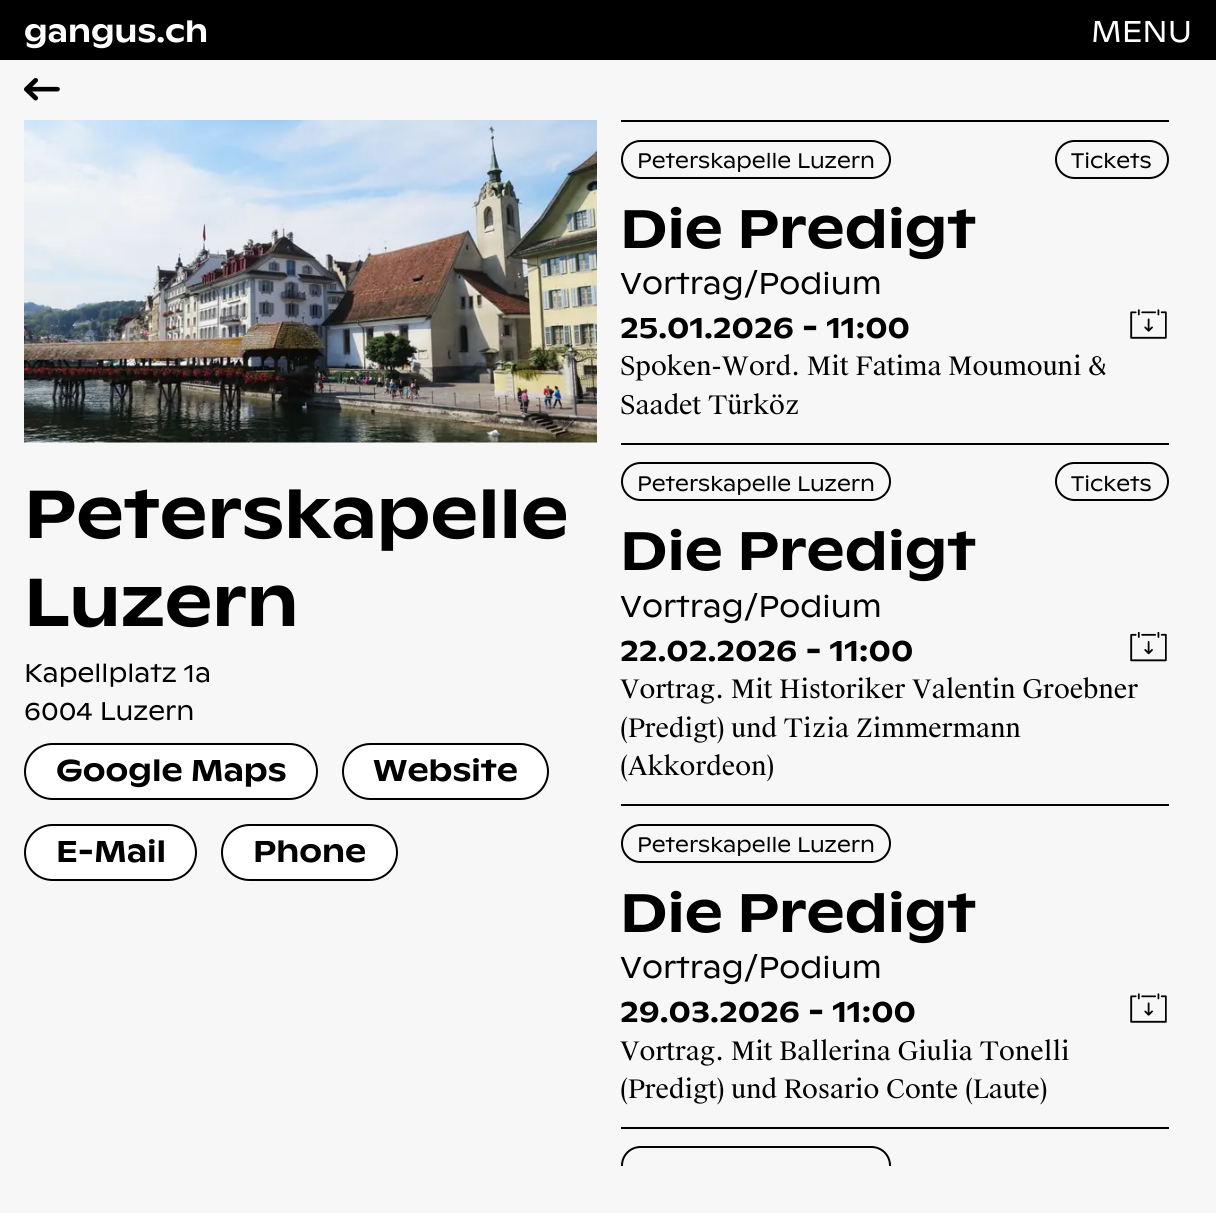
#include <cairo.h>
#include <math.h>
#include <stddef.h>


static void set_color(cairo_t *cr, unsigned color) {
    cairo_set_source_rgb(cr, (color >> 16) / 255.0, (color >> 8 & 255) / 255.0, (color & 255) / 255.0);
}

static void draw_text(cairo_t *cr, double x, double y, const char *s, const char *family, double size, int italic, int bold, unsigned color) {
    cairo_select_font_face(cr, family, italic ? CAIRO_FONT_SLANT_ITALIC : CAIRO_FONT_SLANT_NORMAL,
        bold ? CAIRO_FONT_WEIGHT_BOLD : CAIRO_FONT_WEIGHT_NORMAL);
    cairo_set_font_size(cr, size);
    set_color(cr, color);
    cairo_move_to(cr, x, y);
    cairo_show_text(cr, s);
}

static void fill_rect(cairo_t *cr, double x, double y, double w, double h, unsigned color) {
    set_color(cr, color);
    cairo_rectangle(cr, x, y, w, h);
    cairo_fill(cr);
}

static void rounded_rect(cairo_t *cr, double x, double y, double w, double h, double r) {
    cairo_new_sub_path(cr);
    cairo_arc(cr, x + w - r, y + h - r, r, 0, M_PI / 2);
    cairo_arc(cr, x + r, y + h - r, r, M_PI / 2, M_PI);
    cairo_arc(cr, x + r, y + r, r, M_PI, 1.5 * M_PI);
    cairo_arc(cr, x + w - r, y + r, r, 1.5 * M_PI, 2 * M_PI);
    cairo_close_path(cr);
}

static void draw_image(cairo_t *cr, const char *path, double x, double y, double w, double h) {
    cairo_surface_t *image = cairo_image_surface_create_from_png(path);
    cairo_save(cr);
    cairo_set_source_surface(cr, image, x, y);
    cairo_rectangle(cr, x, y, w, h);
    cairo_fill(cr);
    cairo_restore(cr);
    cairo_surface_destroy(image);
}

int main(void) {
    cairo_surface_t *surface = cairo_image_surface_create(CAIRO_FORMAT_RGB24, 1216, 1213);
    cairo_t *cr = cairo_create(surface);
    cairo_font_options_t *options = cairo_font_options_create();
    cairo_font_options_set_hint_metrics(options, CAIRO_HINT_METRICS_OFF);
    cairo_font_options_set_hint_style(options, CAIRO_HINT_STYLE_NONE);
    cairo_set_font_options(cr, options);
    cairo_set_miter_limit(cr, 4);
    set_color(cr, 0xF7F7F7);
    cairo_paint(cr);
    fill_rect(cr, 0, 0, 1216, 60, 0x000000);
    draw_text(cr, 24, 42, "gangus.ch", "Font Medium", 30, 0, 0, 0xFFFFFF);
    draw_text(cr, 1091, 42, "MENU", "Font", 30, 0, 0, 0xFFFFFF);
    draw_image(cr, "assets/img1.png", 24, 78, 36, 23);
    draw_image(cr, "assets/img2.png", 24, 120, 573, 323);
    draw_text(cr, 24, 538, "Peterskapelle", "Font Medium", 67.5, 0, 0, 0x000000);
    draw_text(cr, 24, 626, "Luzern", "Font Medium", 67.5, 0, 0, 0x000000);
    draw_text(cr, 24, 682, "Kapellplatz 1a", "Font", 25.5, 0, 0, 0x000000);
    draw_text(cr, 24, 720, "6004 Luzern", "Font", 25.5, 0, 0, 0x000000);
    set_color(cr, 0xFFFFFF);
    rounded_rect(cr, 25, 744, 292, 55, 27.5);
    cairo_fill_preserve(cr);
    set_color(cr, 0x000000);
    cairo_stroke(cr);
    draw_text(cr, 56, 781, "Google Maps", "Font Medium", 30, 0, 0, 0x000000);
    set_color(cr, 0xFFFFFF);
    rounded_rect(cr, 343, 744, 205, 55, 27.5);
    cairo_fill_preserve(cr);
    set_color(cr, 0x000000);
    cairo_stroke(cr);
    draw_text(cr, 373, 781, "Website", "Font Medium", 30, 0, 0, 0x000000);
    set_color(cr, 0xFFFFFF);
    rounded_rect(cr, 25, 825, 171, 55, 27.5);
    cairo_fill_preserve(cr);
    set_color(cr, 0x000000);
    cairo_stroke(cr);
    draw_text(cr, 56, 862, "E-Mail", "Font Medium", 30, 0, 0, 0x000000);
    set_color(cr, 0xFFFFFF);
    rounded_rect(cr, 222, 825, 175, 55, 27.5);
    cairo_fill_preserve(cr);
    set_color(cr, 0x000000);
    cairo_stroke(cr);
    draw_text(cr, 253, 862, "Phone", "Font Medium", 30, 0, 0, 0x000000);
    fill_rect(cr, 621, 120, 548, 2, 0x000000);
    fill_rect(cr, 621, 443, 548, 2, 0x000000);
    rounded_rect(cr, 622, 141, 268, 37, 18.5);
    cairo_stroke(cr);
    draw_text(cr, 637, 168, "Peterskapelle Luzern", "Font", 21, 0, 0, 0x000000);
    rounded_rect(cr, 1056, 141, 112, 37, 18.5);
    cairo_stroke(cr);
    draw_text(cr, 1071, 168, "Tickets", "Font", 21, 0, 0, 0x000000);
    draw_text(cr, 620, 248, "Die Predigt", "Font Medium", 54, 0, 0, 0x000000);
    draw_text(cr, 620, 294, "Vortrag/Podium", "Font", 30, 0, 0, 0x000000);
    draw_text(cr, 620, 338, "25.01.2026 - 11:00", "Font Medium", 30, 0, 0, 0x000000);
    draw_image(cr, "assets/img3.png", 1130, 309, 37, 30);
    draw_text(cr, 620, 375, "Spoken-Word. Mit Fatima Moumouni &", "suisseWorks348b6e", 25.5, 0, 0, 0x000000);
    draw_text(cr, 620, 414, "Saadet Türköz", "suisseWorks348b6e", 25.5, 0, 0, 0x000000);
    fill_rect(cr, 621, 804, 548, 2, 0x000000);
    rounded_rect(cr, 622, 463, 268, 37, 18.5);
    cairo_stroke(cr);
    draw_text(cr, 637, 491, "Peterskapelle Luzern", "Font", 21, 0, 0, 0x000000);
    rounded_rect(cr, 1056, 463, 112, 37, 18.5);
    cairo_stroke(cr);
    draw_text(cr, 1071, 491, "Tickets", "Font", 21, 0, 0, 0x000000);
    draw_text(cr, 620, 570, "Die Predigt", "Font Medium", 54, 0, 0, 0x000000);
    draw_text(cr, 620, 617, "Vortrag/Podium", "Font", 30, 0, 0, 0x000000);
    draw_text(cr, 620, 661, "22.02.2026 - 11:00", "Font Medium", 30, 0, 0, 0x000000);
    draw_image(cr, "assets/img4.png", 1130, 632, 37, 30);
    draw_text(cr, 620, 698, "Vortrag. Mit Historiker Valentin Groebner", "suisseWorks348b6e", 25.5, 0, 0, 0x000000);
    draw_text(cr, 620, 737, "(Predigt) und Tizia Zimmermann", "suisseWorks348b6e", 25.5, 0, 0, 0x000000);
    draw_text(cr, 620, 775, "(Akkordeon)", "suisseWorks348b6e", 25.5, 0, 0, 0x000000);
    fill_rect(cr, 621, 1127, 548, 2, 0x000000);
    rounded_rect(cr, 622, 825, 268, 37, 18.5);
    cairo_stroke(cr);
    draw_text(cr, 637, 852, "Peterskapelle Luzern", "Font", 21, 0, 0, 0x000000);
    draw_text(cr, 620, 932, "Die Predigt", "Font Medium", 54, 0, 0, 0x000000);
    draw_text(cr, 620, 978, "Vortrag/Podium", "Font", 30, 0, 0, 0x000000);
    draw_text(cr, 620, 1022, "29.03.2026 - 11:00", "Font Medium", 30, 0, 0, 0x000000);
    draw_image(cr, "assets/img3.png", 1130, 993, 37, 30);
    draw_text(cr, 620, 1060, "Vortrag. Mit Ballerina Giulia Tonelli", "suisseWorks348b6e", 25.5, 0, 0, 0x000000);
    draw_text(cr, 620, 1098, "(Predigt) und Rosario Conte (Laute)", "suisseWorks348b6e", 25.5, 0, 0, 0x000000);
    cairo_save(cr);
    cairo_rectangle(cr, 621, 120, 572, 1046);
    cairo_clip(cr);
    rounded_rect(cr, 622, 1147, 268, 37, 18.5);
    cairo_stroke(cr);
    cairo_restore(cr);
    cairo_surface_write_to_png(surface, "output.png");
    cairo_font_options_destroy(options);
    cairo_destroy(cr);
    cairo_surface_destroy(surface);
    return 0;
}
